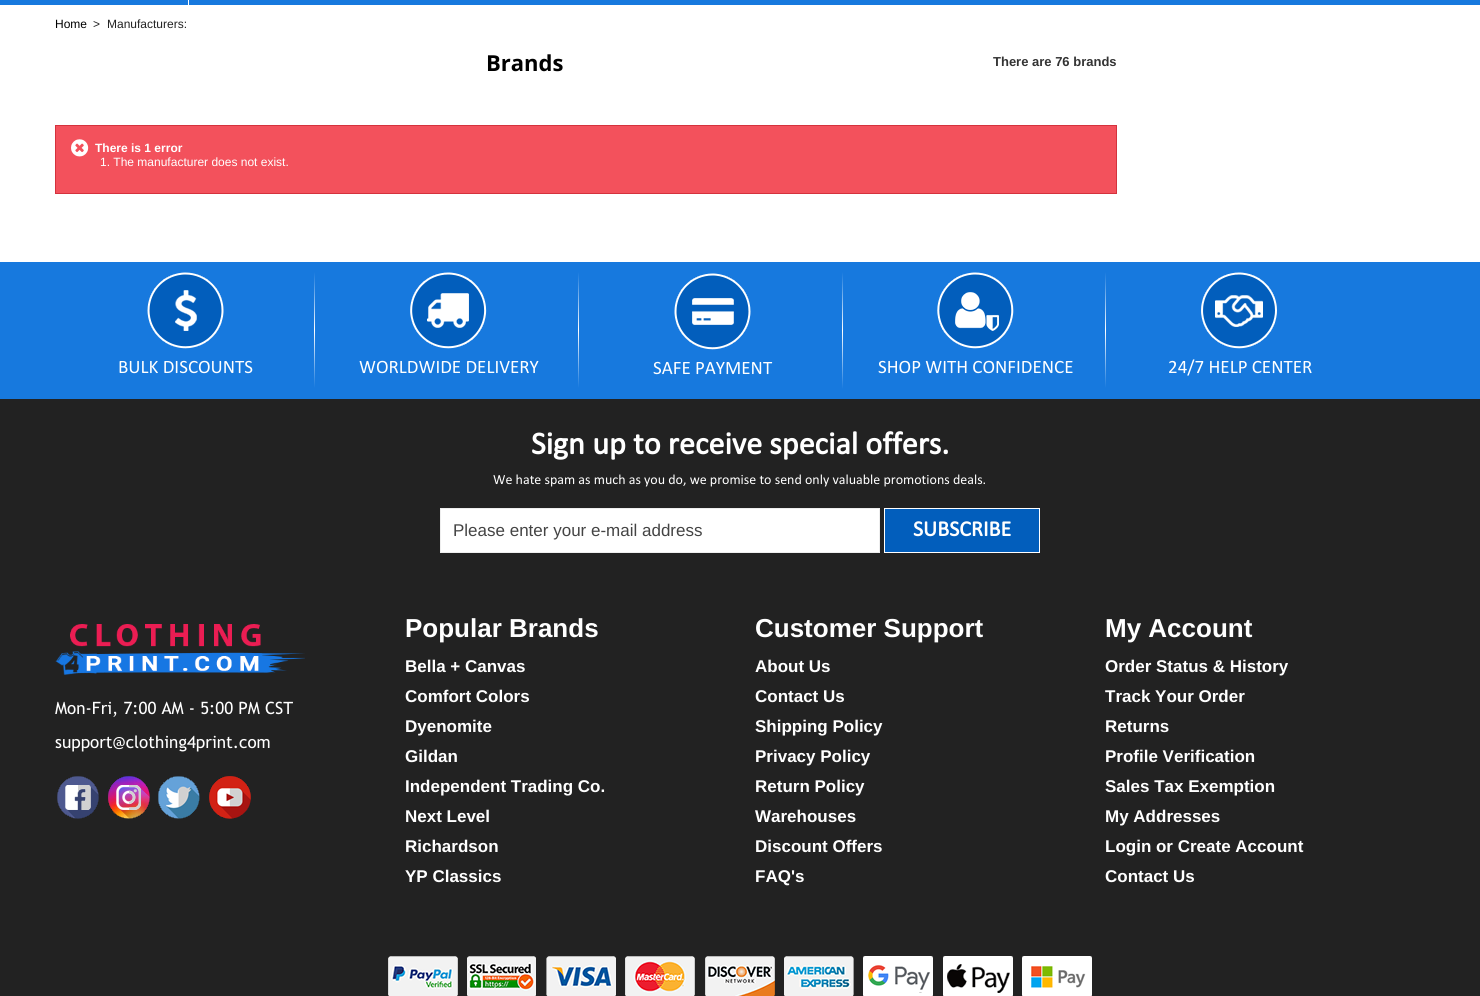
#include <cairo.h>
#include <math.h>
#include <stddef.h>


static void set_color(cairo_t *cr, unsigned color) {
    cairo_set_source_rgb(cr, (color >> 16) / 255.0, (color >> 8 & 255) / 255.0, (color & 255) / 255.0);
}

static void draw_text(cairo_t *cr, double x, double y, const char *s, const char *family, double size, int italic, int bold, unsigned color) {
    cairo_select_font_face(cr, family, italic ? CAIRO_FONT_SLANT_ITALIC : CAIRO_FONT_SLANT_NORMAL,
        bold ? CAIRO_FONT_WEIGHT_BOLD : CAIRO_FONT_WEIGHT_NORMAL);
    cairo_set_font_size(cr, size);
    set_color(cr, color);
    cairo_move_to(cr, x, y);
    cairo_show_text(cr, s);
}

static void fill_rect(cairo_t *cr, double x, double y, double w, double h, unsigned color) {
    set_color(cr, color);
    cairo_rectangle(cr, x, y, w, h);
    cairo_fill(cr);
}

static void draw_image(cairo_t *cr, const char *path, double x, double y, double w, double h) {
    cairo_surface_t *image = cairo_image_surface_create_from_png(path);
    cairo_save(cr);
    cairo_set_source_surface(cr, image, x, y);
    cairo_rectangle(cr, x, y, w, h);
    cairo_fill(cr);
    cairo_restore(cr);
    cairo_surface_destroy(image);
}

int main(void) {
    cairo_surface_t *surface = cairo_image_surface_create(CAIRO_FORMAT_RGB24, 1480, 996);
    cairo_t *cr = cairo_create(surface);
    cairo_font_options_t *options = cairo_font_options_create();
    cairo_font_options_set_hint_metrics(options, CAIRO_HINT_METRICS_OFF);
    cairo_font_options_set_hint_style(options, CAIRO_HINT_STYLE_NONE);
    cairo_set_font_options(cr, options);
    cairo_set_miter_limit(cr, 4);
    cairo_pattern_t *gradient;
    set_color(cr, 0xFFFFFF);
    cairo_paint(cr);
    fill_rect(cr, 0, 0, 1480, 5, 0x1779DE);
    fill_rect(cr, 188, 0, 1, 5, 0xFFFFFF);
    draw_text(cr, 55, 28, "Home", "Liberation Sans", 12, 0, 0, 0x000000);
    draw_text(cr, 93, 28, ">", "Liberation Sans", 12, 0, 0, 0x222222);
    draw_text(cr, 107, 28, "Manufacturers:", "Liberation Sans", 12, 0, 0, 0x222222);
    draw_text(cr, 486, 71, "Brands", "Open Sans", 22, 0, 1, 0x000000);
    draw_text(cr, 993, 66, "There are 76 brands", "Liberation Sans", 13, 0, 1, 0x333333);
    set_color(cr, 0xF3515C);
    cairo_rectangle(cr, 55.5, 125.5, 1061, 68);
    cairo_fill_preserve(cr);
    set_color(cr, 0xD4323D);
    cairo_set_line_width(cr, 1);
    cairo_stroke(cr);
    draw_image(cr, "assets/img1.png", 71, 139, 18, 18);
    draw_text(cr, 95, 152, "There is 1 error", "Liberation Sans", 12, 0, 1, 0xFFFFFF);
    draw_text(cr, 100, 166, "1. The manufacturer does not exist.", "Liberation Sans", 12, 0, 0, 0xFFFFFF);
    fill_rect(cr, 0, 262, 1480, 137, 0x1779DE);
    draw_image(cr, "assets/img2.png", 147, 272, 77, 77);
    draw_text(cr, 118, 373, "BULK DISCOUNTS", "Calibri", 19, 0, 0, 0xFFFFFF);
    gradient = cairo_pattern_create_linear(315, 272, 315, 388);
    cairo_pattern_add_color_stop_rgba(gradient, 0, 0.09, 0.475, 0.871, 1);
    cairo_pattern_add_color_stop_rgba(gradient, 0.5, 1, 1, 1, 1);
    cairo_pattern_add_color_stop_rgba(gradient, 1, 0.09, 0.475, 0.871, 1);
    cairo_set_source(cr, gradient);
    cairo_pattern_destroy(gradient);
    cairo_rectangle(cr, 314, 272, 1, 116);
    cairo_fill(cr);
    draw_image(cr, "assets/img3.png", 410, 272, 77, 77);
    draw_text(cr, 359, 373, "WORLDWIDE DELIVERY", "Calibri", 19, 0, 0, 0xFFFFFF);
    gradient = cairo_pattern_create_linear(579, 272, 579, 388);
    cairo_pattern_add_color_stop_rgba(gradient, 0, 0.09, 0.475, 0.871, 1);
    cairo_pattern_add_color_stop_rgba(gradient, 0.5, 1, 1, 1, 1);
    cairo_pattern_add_color_stop_rgba(gradient, 1, 0.09, 0.475, 0.871, 1);
    cairo_set_source(cr, gradient);
    cairo_pattern_destroy(gradient);
    cairo_rectangle(cr, 578, 272, 1, 116);
    cairo_fill(cr);
    draw_image(cr, "assets/img4.png", 674, 273, 77, 77);
    draw_text(cr, 653, 374, "SAFE PAYMENT", "Calibri", 19, 0, 0, 0xFFFFFF);
    gradient = cairo_pattern_create_linear(843, 272, 843, 389);
    cairo_pattern_add_color_stop_rgba(gradient, 0, 0.09, 0.475, 0.871, 1);
    cairo_pattern_add_color_stop_rgba(gradient, 0.5, 1, 1, 1, 1);
    cairo_pattern_add_color_stop_rgba(gradient, 1, 0.09, 0.475, 0.871, 1);
    cairo_set_source(cr, gradient);
    cairo_pattern_destroy(gradient);
    cairo_rectangle(cr, 842, 272, 1, 117);
    cairo_fill(cr);
    draw_image(cr, "assets/img5.png", 937, 272, 77, 77);
    draw_text(cr, 878, 373, "SHOP WITH CONFIDENCE", "Calibri", 19, 0, 0, 0xFFFFFF);
    gradient = cairo_pattern_create_linear(1106, 272, 1106, 388);
    cairo_pattern_add_color_stop_rgba(gradient, 0, 0.09, 0.475, 0.871, 1);
    cairo_pattern_add_color_stop_rgba(gradient, 0.5, 1, 1, 1, 1);
    cairo_pattern_add_color_stop_rgba(gradient, 1, 0.09, 0.475, 0.871, 1);
    cairo_set_source(cr, gradient);
    cairo_pattern_destroy(gradient);
    cairo_rectangle(cr, 1105, 272, 1, 116);
    cairo_fill(cr);
    draw_image(cr, "assets/img6.png", 1201, 272, 76, 77);
    draw_text(cr, 1168, 373, "24/7 HELP CENTER", "Calibri", 19, 0, 0, 0xFFFFFF);
    fill_rect(cr, 0, 399, 1480, 597, 0x222222);
    draw_text(cr, 531, 454, "Sign up to receive special offers.", "Calibri", 32, 0, 1, 0xFFFFFF);
    draw_text(cr, 493, 484, "We hate spam as much as you do, we promise to send only valuable promotions deals.", "Calibri", 14, 0, 0, 0xFFFFFF);
    cairo_rectangle(cr, 440.5, 508.5, 439, 44);
    cairo_fill_preserve(cr);
    set_color(cr, 0xEEEEEE);
    cairo_stroke(cr);
    draw_text(cr, 453, 536, "Please enter your e-mail address", "Liberation Sans", 17, 0, 0, 0x444444);
    set_color(cr, 0x025EBC);
    cairo_rectangle(cr, 884.5, 508.5, 155, 44);
    cairo_fill_preserve(cr);
    set_color(cr, 0xFFFFFF);
    cairo_stroke(cr);
    draw_text(cr, 913, 536, "SUBSCRIBE", "Calibri", 22, 0, 1, 0xFFFFFF);
    draw_image(cr, "assets/img7.png", 55, 624, 250, 51);
    draw_text(cr, 55, 714, "Mon-Fri, 7:00 AM - 5:00 PM CST", "Trebuchet MS", 17, 0, 0, 0xFFFFFF);
    draw_text(cr, 55, 748, "support@clothing4print.com", "Trebuchet MS", 17, 0, 0, 0xFFFFFF);
    draw_image(cr, "assets/img8.png", 57, 776, 42, 43);
    draw_image(cr, "assets/img9.png", 108, 776, 42, 43);
    draw_image(cr, "assets/img10.png", 158, 776, 42, 43);
    draw_image(cr, "assets/img11.png", 209, 776, 42, 43);
    draw_text(cr, 405, 637, "Popular Brands", "Liberation Sans", 26, 0, 1, 0xFFFFFF);
    draw_text(cr, 405, 672, "Bella + Canvas", "Liberation Sans", 17, 0, 1, 0xFFFFFF);
    draw_text(cr, 405, 702, "Comfort Colors", "Liberation Sans", 17, 0, 1, 0xFFFFFF);
    draw_text(cr, 405, 732, "Dyenomite", "Liberation Sans", 17, 0, 1, 0xFFFFFF);
    draw_text(cr, 405, 762, "Gildan", "Liberation Sans", 17, 0, 1, 0xFFFFFF);
    draw_text(cr, 405, 792, "Independent Trading Co.", "Liberation Sans", 17, 0, 1, 0xFFFFFF);
    draw_text(cr, 405, 822, "Next Level", "Liberation Sans", 17, 0, 1, 0xFFFFFF);
    draw_text(cr, 405, 852, "Richardson", "Liberation Sans", 17, 0, 1, 0xFFFFFF);
    draw_text(cr, 405, 882, "YP Classics", "Liberation Sans", 17, 0, 1, 0xFFFFFF);
    draw_text(cr, 755, 637, "Customer Support", "Liberation Sans", 26, 0, 1, 0xFFFFFF);
    draw_text(cr, 755, 672, "About Us", "Liberation Sans", 17, 0, 1, 0xFFFFFF);
    draw_text(cr, 755, 702, "Contact Us", "Liberation Sans", 17, 0, 1, 0xFFFFFF);
    draw_text(cr, 755, 732, "Shipping Policy", "Liberation Sans", 17, 0, 1, 0xFFFFFF);
    draw_text(cr, 755, 762, "Privacy Policy", "Liberation Sans", 17, 0, 1, 0xFFFFFF);
    draw_text(cr, 755, 792, "Return Policy", "Liberation Sans", 17, 0, 1, 0xFFFFFF);
    draw_text(cr, 755, 822, "Warehouses", "Liberation Sans", 17, 0, 1, 0xFFFFFF);
    draw_text(cr, 755, 852, "Discount Offers", "Liberation Sans", 17, 0, 1, 0xFFFFFF);
    draw_text(cr, 755, 882, "FAQ's", "Liberation Sans", 17, 0, 1, 0xFFFFFF);
    draw_text(cr, 1105, 637, "My Account", "Liberation Sans", 26, 0, 1, 0xFFFFFF);
    draw_text(cr, 1105, 672, "Order Status & History", "Liberation Sans", 17, 0, 1, 0xFFFFFF);
    draw_text(cr, 1105, 702, "Track Your Order", "Liberation Sans", 17, 0, 1, 0xFFFFFF);
    draw_text(cr, 1105, 732, "Returns", "Liberation Sans", 17, 0, 1, 0xFFFFFF);
    draw_text(cr, 1105, 762, "Profile Verification", "Liberation Sans", 17, 0, 1, 0xFFFFFF);
    draw_text(cr, 1105, 792, "Sales Tax Exemption", "Liberation Sans", 17, 0, 1, 0xFFFFFF);
    draw_text(cr, 1105, 822, "My Addresses", "Liberation Sans", 17, 0, 1, 0xFFFFFF);
    draw_text(cr, 1105, 852, "Login or Create Account", "Liberation Sans", 17, 0, 1, 0xFFFFFF);
    draw_text(cr, 1105, 882, "Contact Us", "Liberation Sans", 17, 0, 1, 0xFFFFFF);
    draw_image(cr, "assets/img12.png", 388, 956, 70, 40);
    draw_image(cr, "assets/img13.png", 467, 956, 69, 40);
    draw_image(cr, "assets/img14.png", 546, 956, 70, 40);
    draw_image(cr, "assets/img15.png", 625, 956, 70, 40);
    draw_image(cr, "assets/img16.png", 705, 956, 70, 40);
    draw_image(cr, "assets/img17.png", 784, 956, 70, 40);
    draw_image(cr, "assets/img18.png", 863, 956, 70, 40);
    draw_image(cr, "assets/img19.png", 943, 956, 70, 40);
    draw_image(cr, "assets/img20.png", 1022, 956, 70, 40);
    cairo_surface_write_to_png(surface, "output.png");
    cairo_font_options_destroy(options);
    cairo_destroy(cr);
    cairo_surface_destroy(surface);
    return 0;
}
